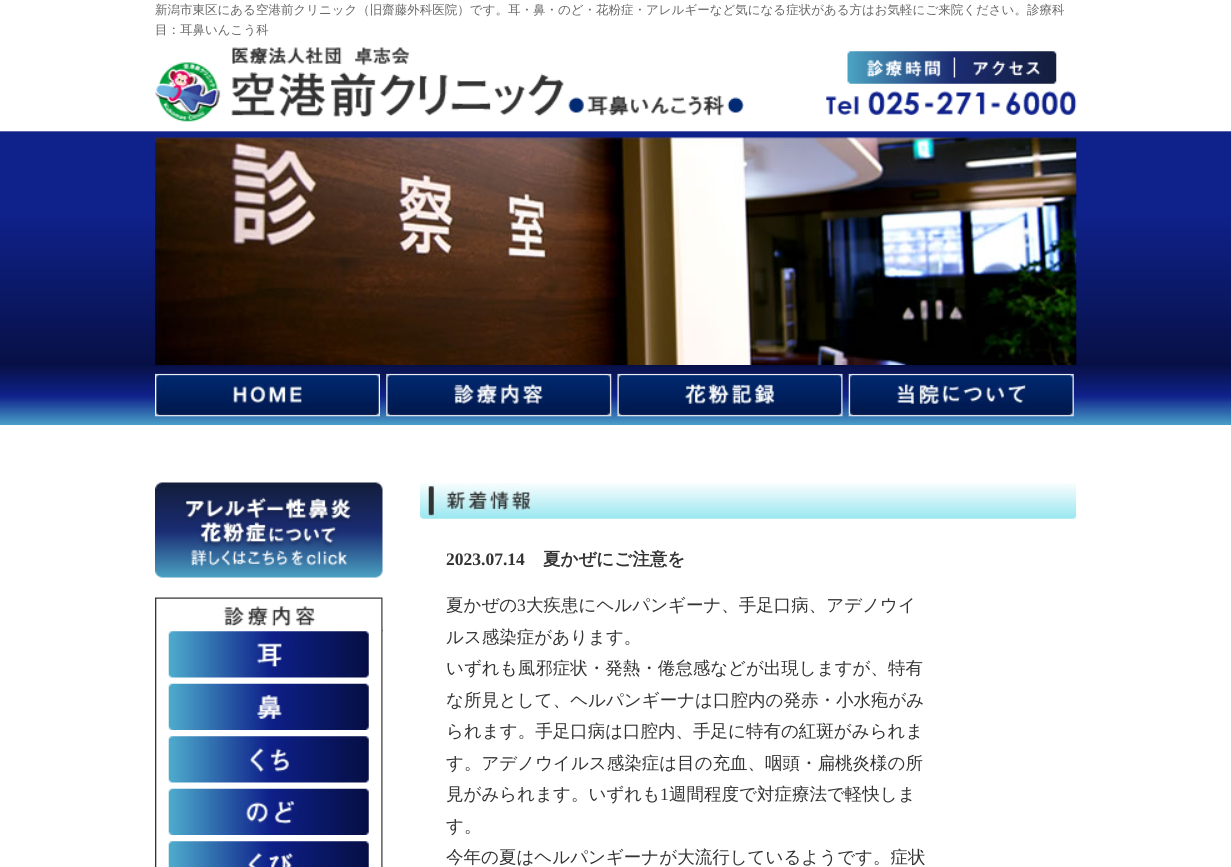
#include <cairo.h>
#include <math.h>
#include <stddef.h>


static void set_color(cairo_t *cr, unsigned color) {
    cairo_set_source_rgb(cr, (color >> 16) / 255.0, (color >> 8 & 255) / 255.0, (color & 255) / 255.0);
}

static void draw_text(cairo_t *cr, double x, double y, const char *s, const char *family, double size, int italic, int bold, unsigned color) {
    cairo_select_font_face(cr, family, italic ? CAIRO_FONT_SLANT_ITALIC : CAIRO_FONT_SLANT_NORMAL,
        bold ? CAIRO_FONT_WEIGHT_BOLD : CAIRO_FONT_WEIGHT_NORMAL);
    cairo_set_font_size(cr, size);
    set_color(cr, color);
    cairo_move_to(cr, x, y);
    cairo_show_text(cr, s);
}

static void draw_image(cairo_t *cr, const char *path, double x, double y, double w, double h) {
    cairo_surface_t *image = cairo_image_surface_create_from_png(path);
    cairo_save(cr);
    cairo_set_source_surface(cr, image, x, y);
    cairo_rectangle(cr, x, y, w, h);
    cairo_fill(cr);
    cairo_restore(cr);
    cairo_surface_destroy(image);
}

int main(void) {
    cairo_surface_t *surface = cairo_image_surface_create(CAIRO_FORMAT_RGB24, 1231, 867);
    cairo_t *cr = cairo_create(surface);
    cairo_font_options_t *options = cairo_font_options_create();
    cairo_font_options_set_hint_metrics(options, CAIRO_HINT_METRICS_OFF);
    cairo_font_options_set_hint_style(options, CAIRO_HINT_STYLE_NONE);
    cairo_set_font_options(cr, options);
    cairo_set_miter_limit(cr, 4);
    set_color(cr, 0xFFFFFF);
    cairo_paint(cr);
    draw_image(cr, "assets/img1.png", 0, 131, 1231, 294);
    draw_text(cr, 155, 14, "新潟市東区にある空港前クリニック（旧齋藤外科医院）です。耳・鼻・のど・花粉症・アレルギーなど気になる症状がある方はお気軽にご来院ください。診療科", "WenQuanYi Zen Hei Medium", 12.5, 0, 0, 0x666666);
    draw_text(cr, 155, 34, "目：耳鼻いんこう科", "WenQuanYi Zen Hei Medium", 12.5, 0, 0, 0x666666);
    draw_image(cr, "assets/img2.png", 155, 47, 589, 75);
    draw_image(cr, "assets/img3.png", 847, 51, 210, 33);
    draw_image(cr, "assets/img4.png", 826, 91, 251, 24);
    draw_image(cr, "assets/img5.png", 155, 137, 922, 228);
    draw_image(cr, "assets/img6.png", 155, 373, 225, 44);
    draw_image(cr, "assets/img7.png", 386, 373, 226, 44);
    draw_image(cr, "assets/img8.png", 617, 373, 226, 44);
    draw_image(cr, "assets/img9.png", 848, 373, 226, 44);
    draw_image(cr, "assets/img10.png", 155, 482, 228, 96);
    draw_image(cr, "assets/img11.png", 155, 630, 228, 237);
    draw_image(cr, "assets/img12.png", 155, 597, 228, 35);
    draw_image(cr, "assets/img13.png", 168, 631, 201, 47);
    draw_image(cr, "assets/img14.png", 168, 683, 201, 47);
    draw_image(cr, "assets/img15.png", 168, 736, 201, 47);
    draw_image(cr, "assets/img16.png", 168, 788, 201, 47);
    draw_image(cr, "assets/img17.png", 168, 841, 201, 26);
    draw_image(cr, "assets/img18.png", 420, 483, 657, 36);
    draw_text(cr, 446, 565, "2023.07.14", "Liberation Serif", 17.5, 0, 1, 0x333333);
    draw_text(cr, 543, 565, "夏かぜにご注意を", "WenQuanYi Zen Hei", 17.5, 0, 1, 0x333333);
    draw_text(cr, 446, 611, "夏かぜの", "WenQuanYi Zen Hei Medium", 17.5, 0, 0, 0x333333);
    draw_text(cr, 517, 611, "3", "Liberation Serif", 17.5, 0, 0, 0x333333);
    draw_text(cr, 526, 611, "大疾患にヘルパンギーナ、手足口病、アデノウイ", "WenQuanYi Zen Hei Medium", 17.5, 0, 0, 0x333333);
    draw_text(cr, 446, 643, "ルス感染症があります。", "WenQuanYi Zen Hei Medium", 17.5, 0, 0, 0x333333);
    draw_text(cr, 446, 674, "いずれも風邪症状・発熱・倦怠感などが出現しますが、特有", "WenQuanYi Zen Hei Medium", 17.5, 0, 0, 0x333333);
    draw_text(cr, 446, 706, "な所見として、ヘルパンギーナは口腔内の発赤・小水疱がみ", "WenQuanYi Zen Hei Medium", 17.5, 0, 0, 0x333333);
    draw_text(cr, 446, 737, "られます。手足口病は口腔内、手足に特有の紅斑がみられま", "WenQuanYi Zen Hei Medium", 17.5, 0, 0, 0x333333);
    draw_text(cr, 446, 769, "す。アデノウイルス感染症は目の充血、咽頭・扁桃炎様の所", "WenQuanYi Zen Hei Medium", 17.5, 0, 0, 0x333333);
    draw_text(cr, 446, 800, "見がみられます。いずれも", "WenQuanYi Zen Hei Medium", 17.5, 0, 0, 0x333333);
    draw_text(cr, 660, 800, "1", "Liberation Serif", 17.5, 0, 0, 0x333333);
    draw_text(cr, 669, 800, "週間程度で対症療法で軽快しま", "WenQuanYi Zen Hei Medium", 17.5, 0, 0, 0x333333);
    draw_text(cr, 446, 832, "す。", "WenQuanYi Zen Hei Medium", 17.5, 0, 0, 0x333333);
    draw_text(cr, 446, 863, "今年の夏はヘルパンギーナが大流行しているようです。症状", "WenQuanYi Zen Hei Medium", 17.5, 0, 0, 0x333333);
    cairo_surface_write_to_png(surface, "output.png");
    cairo_font_options_destroy(options);
    cairo_destroy(cr);
    cairo_surface_destroy(surface);
    return 0;
}
